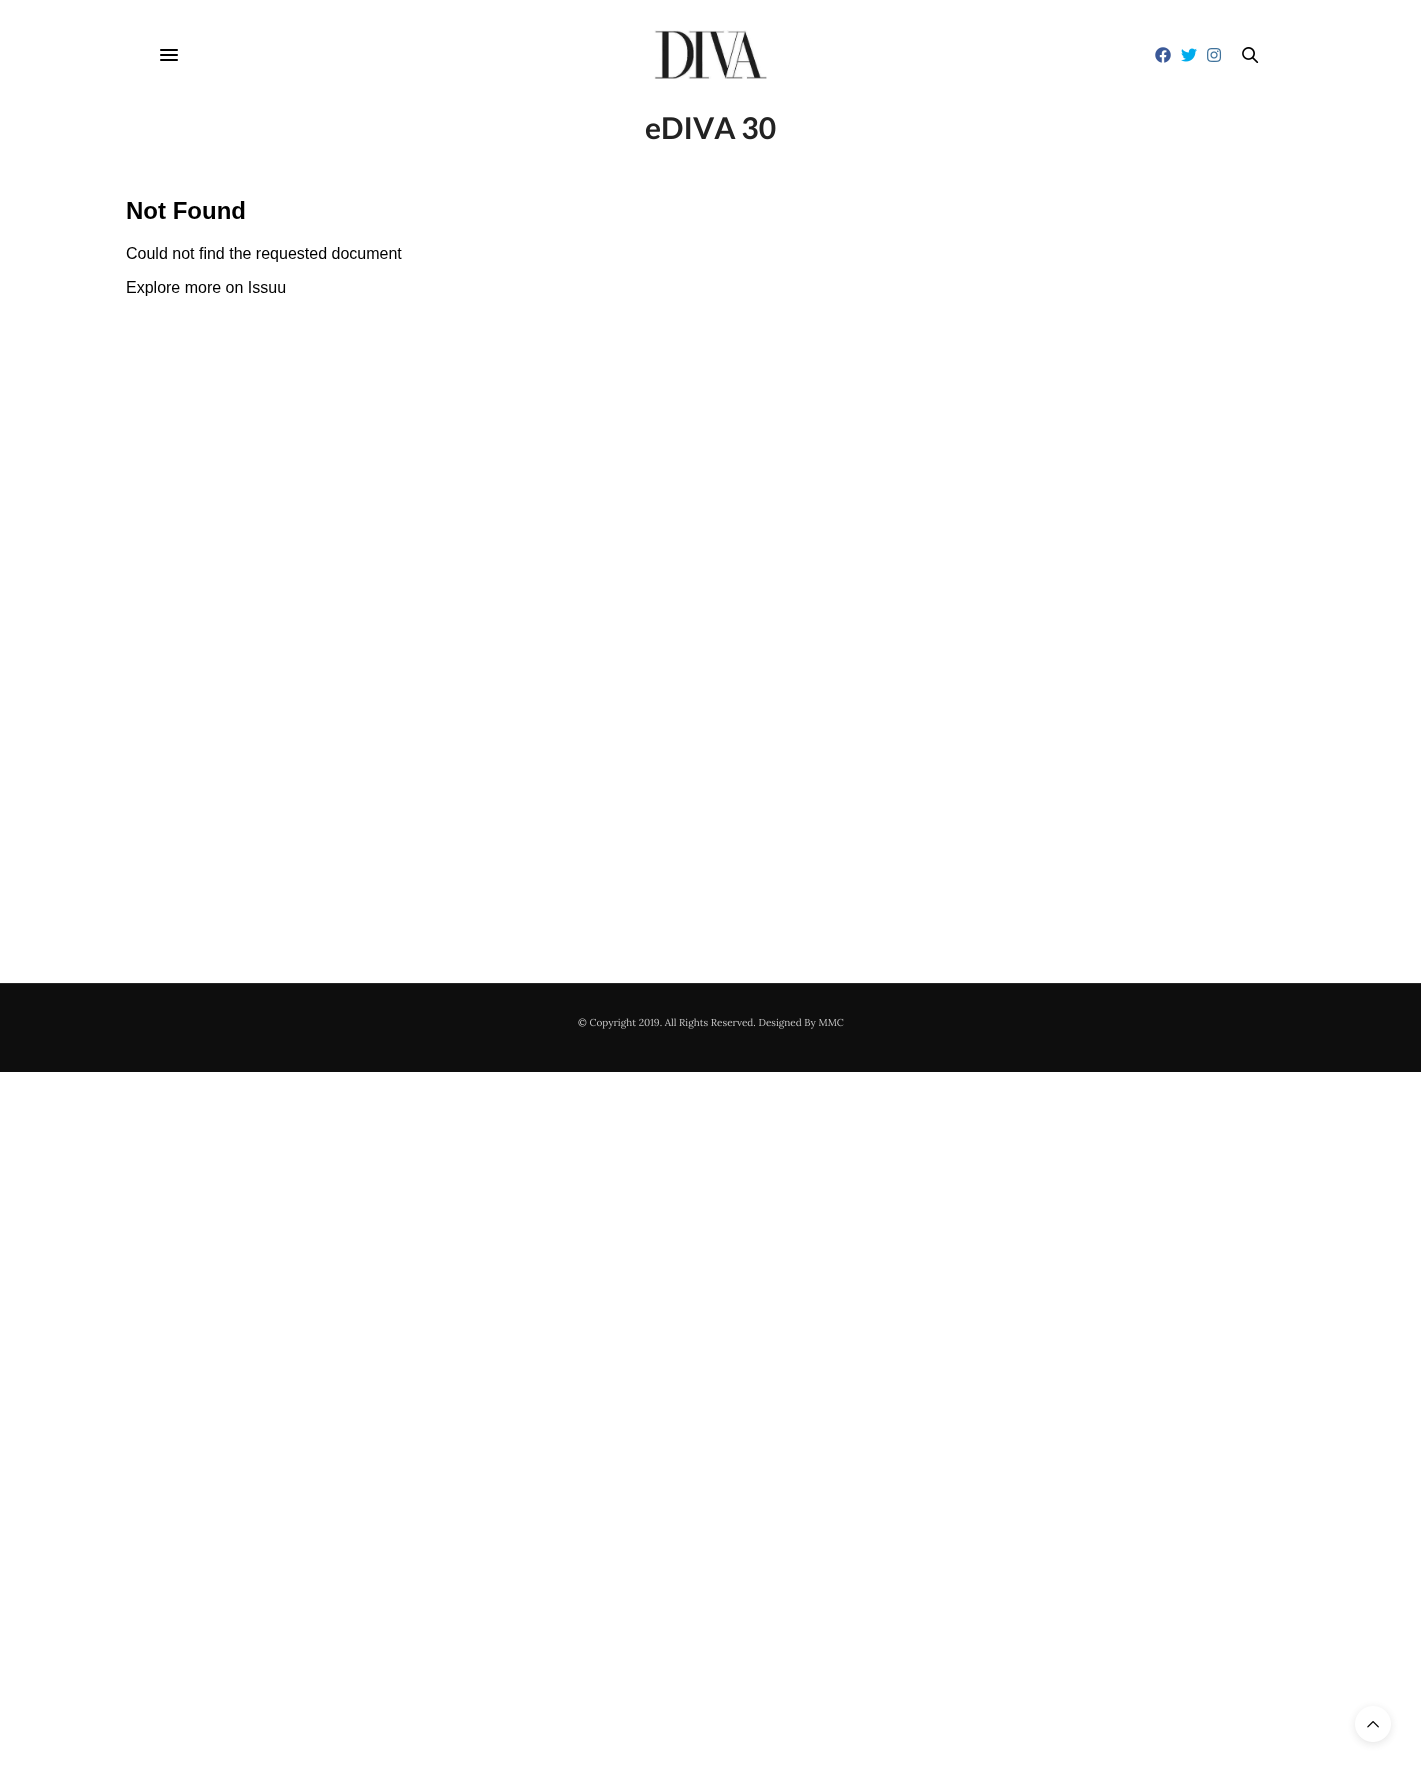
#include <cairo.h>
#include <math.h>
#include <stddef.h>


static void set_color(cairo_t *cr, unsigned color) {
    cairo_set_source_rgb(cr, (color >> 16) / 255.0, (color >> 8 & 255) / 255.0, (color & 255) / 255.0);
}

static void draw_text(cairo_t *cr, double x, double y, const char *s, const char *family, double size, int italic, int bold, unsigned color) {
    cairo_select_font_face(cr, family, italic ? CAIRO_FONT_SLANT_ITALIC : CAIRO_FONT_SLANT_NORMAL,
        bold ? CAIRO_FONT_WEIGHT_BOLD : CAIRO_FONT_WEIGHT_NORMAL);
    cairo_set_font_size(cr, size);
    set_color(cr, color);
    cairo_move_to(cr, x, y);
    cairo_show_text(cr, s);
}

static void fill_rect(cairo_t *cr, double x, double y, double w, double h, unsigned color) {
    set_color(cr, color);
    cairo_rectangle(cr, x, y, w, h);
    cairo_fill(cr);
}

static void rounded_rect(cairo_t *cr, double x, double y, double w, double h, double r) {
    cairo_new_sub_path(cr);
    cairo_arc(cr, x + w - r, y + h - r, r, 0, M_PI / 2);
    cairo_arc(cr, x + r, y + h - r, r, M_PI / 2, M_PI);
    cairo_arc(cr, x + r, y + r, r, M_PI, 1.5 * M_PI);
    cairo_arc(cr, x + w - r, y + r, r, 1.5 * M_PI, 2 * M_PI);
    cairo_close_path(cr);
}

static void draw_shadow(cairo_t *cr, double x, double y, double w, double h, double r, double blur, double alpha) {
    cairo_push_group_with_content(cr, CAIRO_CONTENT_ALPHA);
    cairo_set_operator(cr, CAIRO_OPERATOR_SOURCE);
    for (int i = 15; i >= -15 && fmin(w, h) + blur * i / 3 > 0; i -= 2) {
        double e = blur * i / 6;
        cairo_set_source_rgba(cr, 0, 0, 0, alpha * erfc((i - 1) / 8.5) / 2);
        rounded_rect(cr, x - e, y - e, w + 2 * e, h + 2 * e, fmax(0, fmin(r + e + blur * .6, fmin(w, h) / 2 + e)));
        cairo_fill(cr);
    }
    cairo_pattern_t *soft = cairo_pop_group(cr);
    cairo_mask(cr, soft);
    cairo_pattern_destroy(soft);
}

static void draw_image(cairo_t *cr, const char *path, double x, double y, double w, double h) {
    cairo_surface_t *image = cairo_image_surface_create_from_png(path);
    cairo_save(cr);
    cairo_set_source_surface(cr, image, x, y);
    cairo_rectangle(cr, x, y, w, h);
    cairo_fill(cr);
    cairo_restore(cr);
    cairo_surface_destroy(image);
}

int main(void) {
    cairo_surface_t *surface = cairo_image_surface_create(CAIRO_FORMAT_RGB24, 1421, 1772);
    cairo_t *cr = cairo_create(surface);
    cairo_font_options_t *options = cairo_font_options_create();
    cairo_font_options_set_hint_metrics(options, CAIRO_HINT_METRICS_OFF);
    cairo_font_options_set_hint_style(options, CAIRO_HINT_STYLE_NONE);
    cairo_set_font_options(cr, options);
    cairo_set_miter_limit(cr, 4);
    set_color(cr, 0xFFFFFF);
    cairo_paint(cr);
    set_color(cr, 0x000000);
    rounded_rect(cr, 160, 49, 18, 2, 1);
    cairo_fill(cr);
    rounded_rect(cr, 160, 54, 18, 2, 1);
    cairo_fill(cr);
    rounded_rect(cr, 160, 59, 18, 2, 1);
    cairo_fill(cr);
    draw_image(cr, "assets/img1.png", 654, 30, 113, 49);
    draw_image(cr, "assets/img2.png", 1155, 47, 16, 16);
    draw_image(cr, "assets/img3.png", 1181, 48, 16, 14);
    draw_image(cr, "assets/img4.png", 1207, 48, 15, 14);
    draw_image(cr, "assets/img5.png", 1242, 47, 17, 16);
    draw_text(cr, 645, 139, "eDIVA 30", "Lato", 30, 0, 1, 0x222222);
    draw_image(cr, "assets/img6.png", 126, 201, 276, 95);
    fill_rect(cr, 0, 984, 1421, 88, 0x0E0E0E);
    fill_rect(cr, 0, 983, 1421, 1, 0x262626);
    draw_text(cr, 578, 1026, "© Copyright 2019. All Rights Reserved. Designed By MMC", "Lora", 10, 0, 0, 0xCCCCCC);
    set_color(cr, 0x000000);
    draw_shadow(cr, 1355, 1708, 36, 36, 18, 4, 0.1);
    set_color(cr, 0xFFFFFF);
    cairo_arc(cr, 1373, 1724, 18, 0, 2 * M_PI);
    cairo_fill(cr);
    draw_image(cr, "assets/img7.png", 1367, 1721, 12, 7);
    cairo_surface_write_to_png(surface, "output.png");
    cairo_font_options_destroy(options);
    cairo_destroy(cr);
    cairo_surface_destroy(surface);
    return 0;
}
